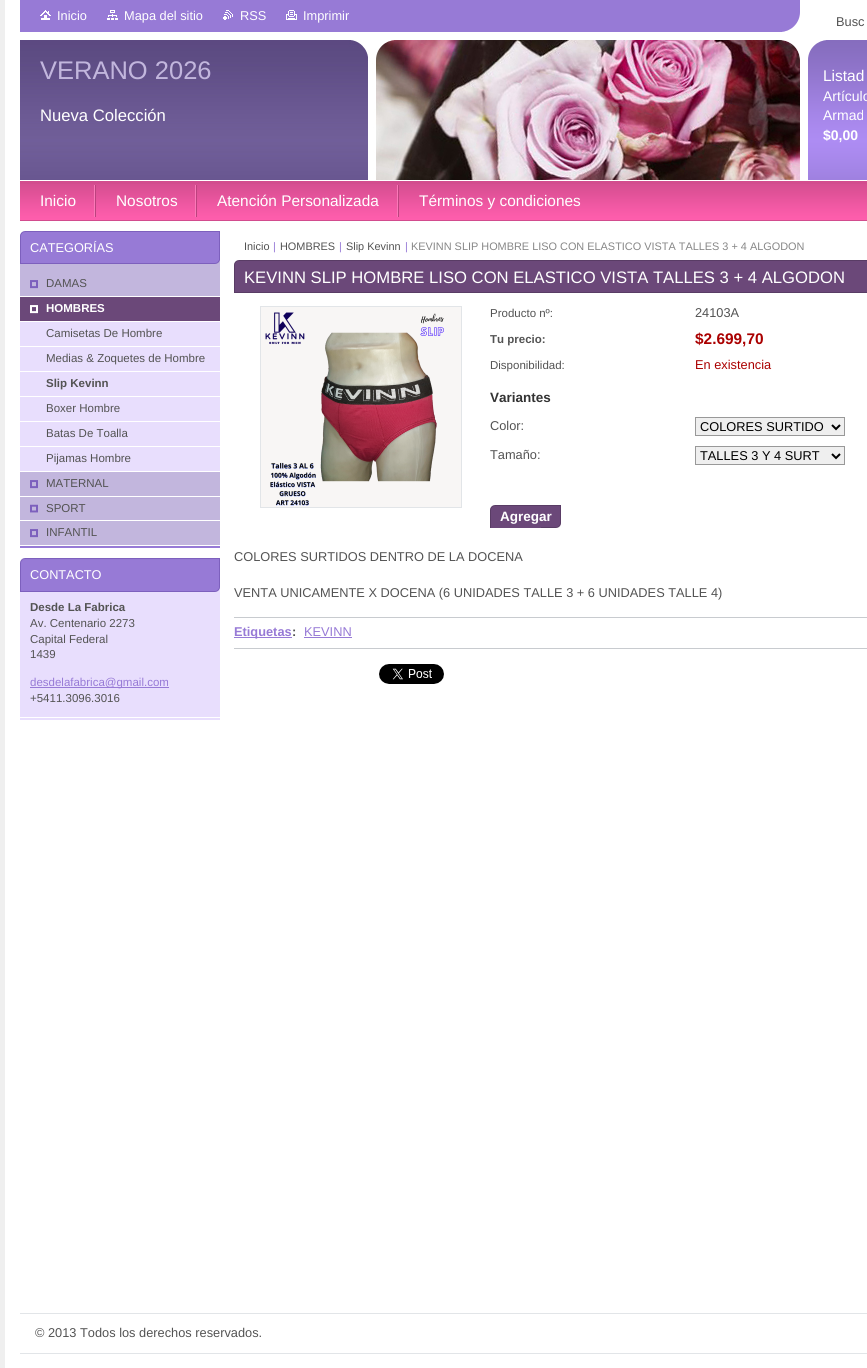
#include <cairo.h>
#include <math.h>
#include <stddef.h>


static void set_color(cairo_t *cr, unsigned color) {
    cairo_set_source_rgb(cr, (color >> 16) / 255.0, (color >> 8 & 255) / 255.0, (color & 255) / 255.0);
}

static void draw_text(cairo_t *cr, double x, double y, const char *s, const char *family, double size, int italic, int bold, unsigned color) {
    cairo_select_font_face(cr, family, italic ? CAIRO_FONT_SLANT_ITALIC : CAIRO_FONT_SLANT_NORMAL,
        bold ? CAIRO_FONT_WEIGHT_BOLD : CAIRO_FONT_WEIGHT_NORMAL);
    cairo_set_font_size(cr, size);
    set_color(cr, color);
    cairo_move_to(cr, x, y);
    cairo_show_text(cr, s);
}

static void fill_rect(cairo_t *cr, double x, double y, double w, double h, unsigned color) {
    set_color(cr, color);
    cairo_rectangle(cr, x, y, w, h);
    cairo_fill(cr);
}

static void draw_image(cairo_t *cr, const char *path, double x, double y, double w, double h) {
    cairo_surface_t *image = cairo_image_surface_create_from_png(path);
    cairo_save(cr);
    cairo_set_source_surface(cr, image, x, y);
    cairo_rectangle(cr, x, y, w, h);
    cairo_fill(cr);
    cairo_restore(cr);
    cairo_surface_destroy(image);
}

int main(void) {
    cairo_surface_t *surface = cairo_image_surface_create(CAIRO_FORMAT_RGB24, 867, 1368);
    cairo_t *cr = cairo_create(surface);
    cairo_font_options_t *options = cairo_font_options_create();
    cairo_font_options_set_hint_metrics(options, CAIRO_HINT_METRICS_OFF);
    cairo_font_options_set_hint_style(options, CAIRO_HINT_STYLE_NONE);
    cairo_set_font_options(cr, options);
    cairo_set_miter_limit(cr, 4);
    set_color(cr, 0xFFFFFF);
    cairo_paint(cr);
    fill_rect(cr, 0, 0, 5, 1368, 0xEFEFEF);
    draw_image(cr, "assets/img1.png", 20, 0, 780, 32);
    draw_image(cr, "assets/img2.png", 40, 10, 11, 10);
    draw_text(cr, 57, 20, "Inicio", "Liberation Sans", 12.8, 0, 0, 0xFFFFFF);
    draw_image(cr, "assets/img3.png", 107, 10, 11, 10);
    draw_text(cr, 124, 20, "Mapa del sitio", "Liberation Sans", 12.8, 0, 0, 0xFFFFFF);
    draw_image(cr, "assets/img4.png", 223, 10, 10, 10);
    draw_text(cr, 240, 20, "RSS", "Liberation Sans", 12.8, 0, 0, 0xFFFFFF);
    draw_image(cr, "assets/img5.png", 286, 10, 11, 10);
    draw_text(cr, 303, 20, "Imprimir", "Liberation Sans", 12.8, 0, 0, 0xFFFFFF);
    draw_text(cr, 836, 26, "Busc", "Liberation Sans", 12.8, 0, 0, 0x535353);
    draw_image(cr, "assets/img6.png", 20, 40, 780, 140);
    draw_image(cr, "assets/img7.png", 780, 40, 20, 20);
    draw_text(cr, 40, 79, "VERANO 2026", "Liberation Sans", 25.5, 0, 0, 0xC2B6DD);
    draw_text(cr, 40, 121, "Nueva Colección", "Liberation Sans", 16.65, 0, 0, 0xFFFFFF);
    draw_image(cr, "assets/img8.png", 808, 40, 59, 140);
    draw_text(cr, 823, 81, "Listad", "Liberation Sans", 15.5, 0, 0, 0xFFFFFF);
    draw_text(cr, 823, 101, "Artículo", "Liberation Sans", 14, 0, 0, 0xFFFFFF);
    draw_text(cr, 823, 120, "Armad", "Liberation Sans", 14, 0, 0, 0xFFFFFF);
    draw_text(cr, 823, 140, "$0,00", "Liberation Sans", 14, 0, 1, 0xFFFFFF);
    fill_rect(cr, 20, 181, 847, 40, 0xD24C8E);
    draw_image(cr, "assets/img9.png", 20, 184, 847, 36);
    draw_image(cr, "assets/img10.png", 94, 185, 2, 32);
    draw_text(cr, 40, 206, "Inicio", "Liberation Sans", 15.4, 0, 0, 0xFFFFFF);
    draw_image(cr, "assets/img10.png", 195, 185, 2, 32);
    draw_text(cr, 116, 206, "Nosotros", "Liberation Sans", 15.4, 0, 0, 0xFFFFFF);
    draw_image(cr, "assets/img10.png", 397, 185, 2, 32);
    draw_text(cr, 217, 206, "Atención Personalizada", "Liberation Sans", 15.4, 0, 0, 0xFFFFFF);
    draw_text(cr, 419, 206, "Términos y condiciones", "Liberation Sans", 15.4, 0, 0, 0xFFFFFF);
    fill_rect(cr, 20, 546, 200, 2, 0x977AD6);
    fill_rect(cr, 20, 264, 200, 281, 0xC2B6DD);
    draw_image(cr, "assets/img11.png", 20, 231, 200, 33);
    draw_image(cr, "assets/img12.png", 21, 260, 199, 4);
    draw_text(cr, 30, 252, "CATEGORÍAS", "Liberation Sans", 12.75, 0, 0, 0xFFFFFF);
    draw_image(cr, "assets/img13.png", 30, 280, 8, 9);
    fill_rect(cr, 20, 296, 200, 1, 0xFFFFFF);
    draw_text(cr, 46, 287, "DAMAS", "Liberation Sans", 11.5, 0, 0, 0x535353);
    fill_rect(cr, 20, 297, 200, 24, 0x6B4879);
    draw_image(cr, "assets/img14.png", 30, 305, 8, 9);
    fill_rect(cr, 20, 321, 200, 1, 0xFFFFFF);
    draw_text(cr, 46, 312, "HOMBRES", "Liberation Sans", 11.5, 0, 1, 0xFFFFFF);
    fill_rect(cr, 20, 322, 200, 149, 0xE8DEFD);
    fill_rect(cr, 20, 346, 200, 1, 0xFFFFFF);
    draw_text(cr, 46, 337, "Camisetas De Hombre", "Liberation Sans", 11.5, 0, 0, 0x535353);
    fill_rect(cr, 20, 371, 200, 1, 0xFFFFFF);
    draw_text(cr, 46, 362, "Medias & Zoquetes de Hombre", "Liberation Sans", 11.5, 0, 0, 0x535353);
    fill_rect(cr, 20, 396, 200, 1, 0xFFFFFF);
    draw_text(cr, 46, 387, "Slip Kevinn", "Liberation Sans", 11.5, 0, 1, 0x535353);
    fill_rect(cr, 20, 421, 200, 1, 0xFFFFFF);
    draw_text(cr, 46, 412, "Boxer Hombre", "Liberation Sans", 11.5, 0, 0, 0x535353);
    fill_rect(cr, 20, 446, 200, 1, 0xFFFFFF);
    draw_text(cr, 46, 437, "Batas De Toalla", "Liberation Sans", 11.5, 0, 0, 0x535353);
    fill_rect(cr, 20, 471, 200, 1, 0xFFFFFF);
    draw_text(cr, 46, 462, "Pijamas Hombre", "Liberation Sans", 11.5, 0, 0, 0x535353);
    draw_image(cr, "assets/img13.png", 30, 480, 8, 9);
    fill_rect(cr, 20, 496, 200, 1, 0xFFFFFF);
    draw_text(cr, 46, 487, "MATERNAL", "Liberation Sans", 11.5, 0, 0, 0x535353);
    draw_image(cr, "assets/img15.png", 30, 504, 8, 9);
    fill_rect(cr, 20, 520, 200, 1, 0xFFFFFF);
    draw_text(cr, 46, 512, "SPORT", "Liberation Sans", 11.5, 0, 0, 0x535353);
    draw_image(cr, "assets/img13.png", 30, 529, 8, 9);
    draw_text(cr, 46, 536, "INFANTIL", "Liberation Sans", 11.5, 0, 0, 0x535353);
    fill_rect(cr, 20, 718, 200, 2, 0xE8DEFD);
    fill_rect(cr, 20, 592, 200, 125, 0xE8DEFD);
    draw_image(cr, "assets/img16.png", 20, 558, 200, 34);
    draw_image(cr, "assets/img17.png", 21, 587, 199, 5);
    draw_text(cr, 30, 579, "CONTACTO", "Liberation Sans", 12.75, 0, 0, 0xFFFFFF);
    draw_text(cr, 30, 611, "Desde La Fabrica", "Liberation Sans", 11.5, 0, 1, 0x535353);
    draw_text(cr, 30, 627, "Av. Centenario 2273", "Liberation Sans", 11.5, 0, 0, 0x535353);
    draw_text(cr, 30, 643, "Capital Federal", "Liberation Sans", 11.5, 0, 0, 0x535353);
    draw_text(cr, 30, 658, "1439", "Liberation Sans", 11.5, 0, 0, 0x535353);
    fill_rect(cr, 30, 687, 139, 1, 0x977AD6);
    draw_text(cr, 30, 686, "desdelafabrica@gmail.com", "Liberation Sans", 11.5, 0, 0, 0x977AD6);
    draw_text(cr, 30, 702, "+5411.3096.3016", "Liberation Sans", 11.5, 0, 0, 0x535353);
    draw_text(cr, 244, 250, "Inicio", "Liberation Sans", 10.9, 0, 0, 0x535353);
    draw_text(cr, 273, 250, "|", "Liberation Sans", 10.9, 0, 0, 0x977AD6);
    draw_text(cr, 280, 250, "HOMBRES", "Liberation Sans", 10.9, 0, 0, 0x535353);
    draw_text(cr, 339, 250, "|", "Liberation Sans", 10.9, 0, 0, 0x977AD6);
    draw_text(cr, 346, 250, "Slip Kevinn", "Liberation Sans", 10.9, 0, 0, 0x535353);
    draw_text(cr, 405, 250, "|", "Liberation Sans", 10.9, 0, 0, 0x977AD6);
    draw_text(cr, 411, 250, "KEVINN SLIP HOMBRE LISO CON ELASTICO VISTA TALLES 3 + 4 ALGODON", "Liberation Sans", 10.9, 0, 0, 0x878787);
    draw_image(cr, "assets/img18.png", 234, 260, 633, 33);
    fill_rect(cr, 235, 292, 632, 1, 0x593C65);
    draw_text(cr, 244, 283, "KEVINN SLIP HOMBRE LISO CON ELASTICO VISTA TALLES 3 + 4 ALGODON", "Liberation Sans", 16.65, 0, 0, 0xFFFFFF);
    cairo_rectangle(cr, 260.5, 306.5, 201, 201);
    set_color(cr, 0xE2E5E8);
    cairo_set_line_width(cr, 1);
    cairo_stroke(cr);
    draw_image(cr, "assets/img19.png", 261, 307, 200, 200);
    draw_text(cr, 490, 317, "Producto nº:", "Liberation Sans", 11.5, 0, 0, 0x535353);
    draw_text(cr, 695, 317, "24103A", "Liberation Sans", 12.8, 0, 0, 0x535353);
    draw_text(cr, 490, 343, "Tu precio:", "Liberation Sans", 11.5, 0, 1, 0x535353);
    draw_text(cr, 695, 344, "$2.699,70", "Liberation Sans", 15.4, 0, 1, 0xAA0000);
    draw_text(cr, 490, 369, "Disponibilidad:", "Liberation Sans", 11.5, 0, 0, 0x535353);
    draw_text(cr, 695, 369, "En existencia", "Liberation Sans", 12.8, 0, 0, 0xAA0000);
    draw_text(cr, 490, 402, "Variantes", "Liberation Sans", 13.5, 0, 1, 0x333333);
    draw_text(cr, 490, 430, "Color:", "Liberation Sans", 12.8, 0, 0, 0x535353);
    set_color(cr, 0xEFEFEF);
    cairo_rectangle(cr, 695.5, 417.5, 149, 18);
    cairo_fill_preserve(cr);
    set_color(cr, 0x999999);
    cairo_stroke(cr);
    cairo_new_path(cr);
    cairo_move_to(cr, 832, 425);
    cairo_line_to(cr, 836, 429);
    cairo_line_to(cr, 840, 425);
    set_color(cr, 0x000000);
    cairo_set_line_width(cr, 2);
    cairo_stroke(cr);
    draw_text(cr, 700, 431, "COLORES SURTIDO", "Liberation Sans", 12.8, 0, 0, 0x000000);
    draw_text(cr, 490, 459, "Tamaño:", "Liberation Sans", 12.8, 0, 0, 0x535353);
    set_color(cr, 0xEFEFEF);
    cairo_rectangle(cr, 695.5, 446.5, 149, 18);
    cairo_fill_preserve(cr);
    set_color(cr, 0x999999);
    cairo_set_line_width(cr, 1);
    cairo_stroke(cr);
    cairo_new_path(cr);
    cairo_move_to(cr, 832, 454);
    cairo_line_to(cr, 836, 458);
    cairo_line_to(cr, 840, 454);
    set_color(cr, 0x000000);
    cairo_set_line_width(cr, 2);
    cairo_stroke(cr);
    draw_text(cr, 700, 460, "TALLES 3 Y 4 SURT", "Liberation Sans", 12.8, 0, 0, 0x000000);
    draw_image(cr, "assets/img20.png", 490, 505, 71, 23);
    fill_rect(cr, 560, 506, 1, 11, 0x5A3C66);
    draw_image(cr, "assets/img21.png", 541, 517, 20, 11);
    draw_text(cr, 500, 521, "Agregar", "Liberation Sans", 13.5, 0, 1, 0xFFFFFF);
    draw_text(cr, 234, 561, "COLORES SURTIDOS DENTRO DE LA DOCENA", "Liberation Sans", 12.8, 0, 0, 0x535353);
    draw_text(cr, 234, 597, "VENTA UNICAMENTE X DOCENA (6 UNIDADES TALLE 3 + 6 UNIDADES TALLE 4)", "Liberation Sans", 12.8, 0, 0, 0x535353);
    fill_rect(cr, 234, 617, 633, 1, 0xC8CBCF);
    fill_rect(cr, 234, 648, 633, 1, 0xC8CBCF);
    fill_rect(cr, 234, 637, 58, 1, 0x977AD6);
    draw_text(cr, 234, 636, "Etiquetas", "Liberation Sans", 12.8, 0, 1, 0x977AD6);
    draw_text(cr, 292, 636, ":", "Liberation Sans", 12.8, 0, 1, 0x535353);
    draw_text(cr, 304, 636, "KEVINN", "Liberation Sans", 12.8, 0, 0, 0x977AD6);
    fill_rect(cr, 304, 637, 48, 1, 0x977AD6);
    draw_image(cr, "assets/img22.png", 379, 664, 65, 20);
    fill_rect(cr, 20, 1313, 847, 1, 0xE2E5E8);
    fill_rect(cr, 20, 1353, 847, 1, 0xE2E5E8);
    draw_text(cr, 35, 1337, "© 2013 Todos los derechos reservados.", "Liberation Sans", 12.8, 0, 0, 0x535353);
    cairo_surface_write_to_png(surface, "output.png");
    cairo_font_options_destroy(options);
    cairo_destroy(cr);
    cairo_surface_destroy(surface);
    return 0;
}
